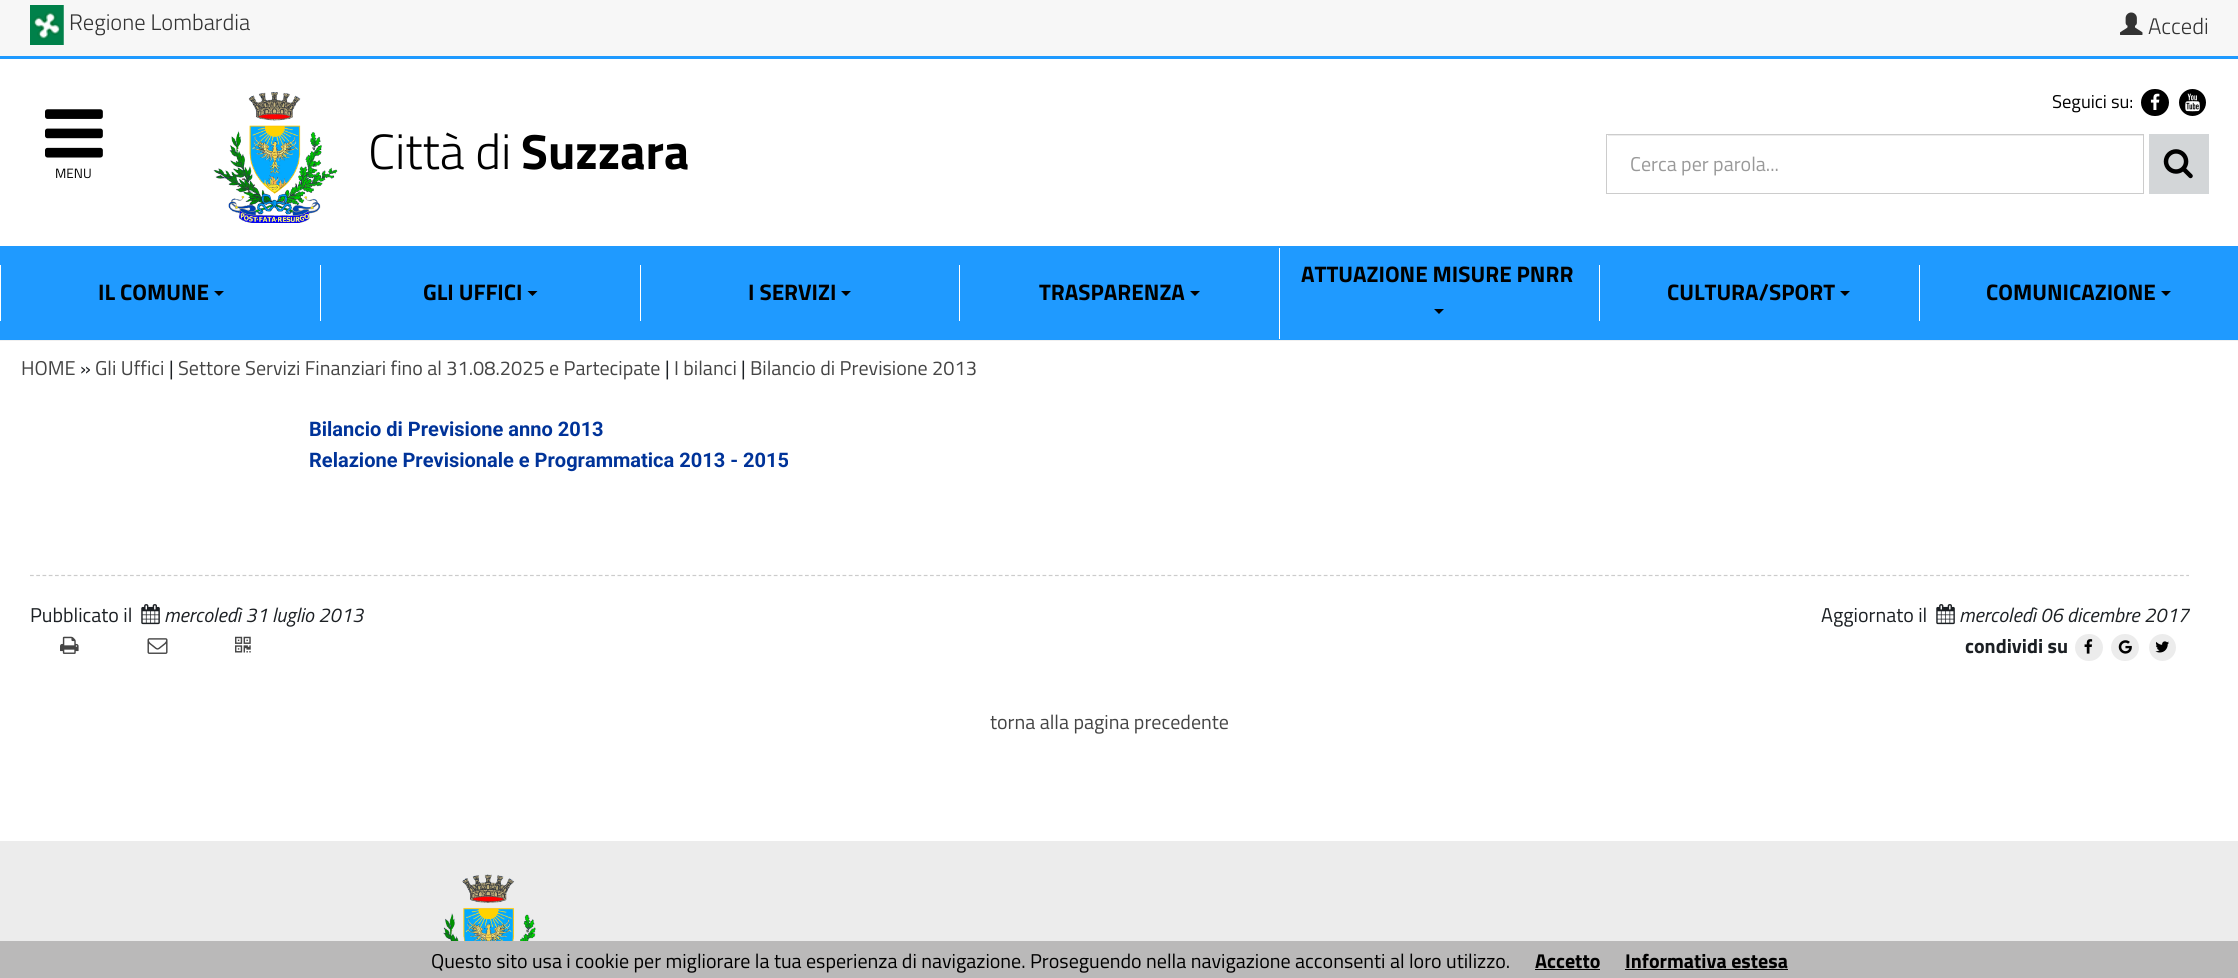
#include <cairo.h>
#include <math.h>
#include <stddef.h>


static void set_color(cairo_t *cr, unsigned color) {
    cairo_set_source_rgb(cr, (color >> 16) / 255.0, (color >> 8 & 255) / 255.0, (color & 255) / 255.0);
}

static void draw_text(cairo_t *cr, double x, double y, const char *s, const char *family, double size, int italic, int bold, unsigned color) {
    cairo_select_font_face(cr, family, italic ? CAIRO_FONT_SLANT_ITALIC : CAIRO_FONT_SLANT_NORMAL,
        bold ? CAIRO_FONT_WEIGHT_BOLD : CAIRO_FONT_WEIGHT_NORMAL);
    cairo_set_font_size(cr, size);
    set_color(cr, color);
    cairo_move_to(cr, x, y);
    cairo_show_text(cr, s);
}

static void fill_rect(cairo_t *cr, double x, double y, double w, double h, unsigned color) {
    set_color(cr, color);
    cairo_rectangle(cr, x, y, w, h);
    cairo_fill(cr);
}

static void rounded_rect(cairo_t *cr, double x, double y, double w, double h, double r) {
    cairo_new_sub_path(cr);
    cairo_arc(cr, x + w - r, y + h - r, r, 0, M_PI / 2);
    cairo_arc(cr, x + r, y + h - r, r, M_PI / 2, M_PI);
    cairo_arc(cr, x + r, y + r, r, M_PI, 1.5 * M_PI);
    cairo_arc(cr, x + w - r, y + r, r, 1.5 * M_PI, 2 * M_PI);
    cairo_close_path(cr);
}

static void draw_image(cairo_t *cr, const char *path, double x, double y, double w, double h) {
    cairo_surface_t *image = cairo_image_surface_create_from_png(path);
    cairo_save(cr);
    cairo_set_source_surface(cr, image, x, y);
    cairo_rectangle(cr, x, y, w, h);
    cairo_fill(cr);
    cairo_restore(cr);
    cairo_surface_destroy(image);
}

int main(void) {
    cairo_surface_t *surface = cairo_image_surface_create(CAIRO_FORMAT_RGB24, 2238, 978);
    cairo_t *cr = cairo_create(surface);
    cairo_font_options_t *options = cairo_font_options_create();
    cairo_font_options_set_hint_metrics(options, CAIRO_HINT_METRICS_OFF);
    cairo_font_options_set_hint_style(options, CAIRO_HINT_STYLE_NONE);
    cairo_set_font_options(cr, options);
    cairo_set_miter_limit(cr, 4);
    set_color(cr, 0xF0F0F0);
    cairo_paint(cr);
    fill_rect(cr, 0, 0, 2238, 56, 0xF7F7F7);
    fill_rect(cr, 0, 56, 2238, 3, 0x1F9AFF);
    draw_image(cr, "assets/img1.png", 30, 5, 34, 40);
    draw_text(cr, 69, 30, "Regione Lombardia", "Titillium Web Light", 22.5, 0, 0, 0x333333);
    draw_image(cr, "assets/img2.png", 2120, 12, 23, 23);
    draw_text(cr, 2148, 34, "Accedi", "Titillium Web Light", 22.5, 0, 0, 0x333333);
    fill_rect(cr, 0, 59, 2238, 187, 0xFFFFFF);
    draw_image(cr, "assets/img3.png", 213, 92, 125, 131);
    draw_text(cr, 368, 169, "Città di", "Titillium Web Light", 49.5, 0, 0, 0x000000);
    draw_text(cr, 521, 169, "Suzzara", "Titillium Web", 49.5, 0, 1, 0x000000);
    draw_text(cr, 2052, 108, "Seguici su:", "Titillium Web", 18.5, 0, 0, 0x000000);
    rounded_rect(cr, 2141, 89, 28, 27, 13.5);
    cairo_fill(cr);
    draw_image(cr, "assets/img4.png", 2150, 93, 10, 17);
    cairo_arc(cr, 2192.5, 102.5, 13.5, 0, 2 * M_PI);
    cairo_fill(cr);
    draw_image(cr, "assets/img5.png", 2185, 93, 15, 19);
    fill_rect(cr, 1608, 135, 535, 1, 0xECECEC);
    cairo_rectangle(cr, 1606.5, 134.5, 537, 59);
    set_color(cr, 0xCCCCCC);
    cairo_set_line_width(cr, 1);
    cairo_stroke(cr);
    draw_text(cr, 1630, 171, "Cerca per parola...", "Titillium Web", 20.02, 0, 0, 0x999999);
    fill_rect(cr, 2149, 134, 60, 60, 0xD3D6D8);
    draw_image(cr, "assets/img6.png", 2163, 149, 30, 30);
    draw_image(cr, "assets/img7.png", 45, 109, 58, 49);
    draw_text(cr, 55, 178, "MENU", "Titillium Web", 13.5, 0, 0, 0x000000);
    fill_rect(cr, 0, 246, 2238, 94, 0x1F9AFF);
    fill_rect(cr, 1279, 248, 1, 91, 0xFFFFFF);
    draw_text(cr, 1301, 282, "ATTUAZIONE MISURE PNRR", "Titillium Web", 22.5, 0, 1, 0x000000);
    cairo_new_path(cr);
    cairo_move_to(cr, 1434, 309);
    cairo_line_to(cr, 1444, 309);
    cairo_line_to(cr, 1439, 314);
    cairo_close_path(cr);
    cairo_fill(cr);
    fill_rect(cr, 0, 265, 1, 56, 0xFFFFFF);
    draw_text(cr, 98, 300, "IL COMUNE", "Titillium Web", 22.5, 0, 1, 0x000000);
    cairo_new_path(cr);
    cairo_move_to(cr, 214, 291);
    cairo_line_to(cr, 224, 291);
    cairo_line_to(cr, 219, 296);
    cairo_close_path(cr);
    cairo_fill(cr);
    fill_rect(cr, 320, 265, 1, 56, 0xFFFFFF);
    draw_text(cr, 423, 300, "GLI UFFICI", "Titillium Web", 22.5, 0, 1, 0x000000);
    cairo_new_path(cr);
    cairo_move_to(cr, 527.5, 291);
    cairo_line_to(cr, 537.5, 291);
    cairo_line_to(cr, 532.5, 296);
    cairo_close_path(cr);
    cairo_fill(cr);
    fill_rect(cr, 640, 265, 1, 56, 0xFFFFFF);
    draw_text(cr, 748, 300, "I SERVIZI", "Titillium Web", 22.5, 0, 1, 0x000000);
    cairo_new_path(cr);
    cairo_move_to(cr, 841, 291);
    cairo_line_to(cr, 851, 291);
    cairo_line_to(cr, 846, 296);
    cairo_close_path(cr);
    cairo_fill(cr);
    fill_rect(cr, 959, 265, 1, 56, 0xFFFFFF);
    draw_text(cr, 1039, 300, "TRASPARENZA", "Titillium Web", 22.5, 0, 1, 0x000000);
    cairo_new_path(cr);
    cairo_move_to(cr, 1190, 291);
    cairo_line_to(cr, 1200, 291);
    cairo_line_to(cr, 1195, 296);
    cairo_close_path(cr);
    cairo_fill(cr);
    fill_rect(cr, 1599, 265, 1, 56, 0xFFFFFF);
    draw_text(cr, 1667, 300, "CULTURA/SPORT", "Titillium Web", 22.5, 0, 1, 0x000000);
    cairo_new_path(cr);
    cairo_move_to(cr, 1840, 291);
    cairo_line_to(cr, 1850, 291);
    cairo_line_to(cr, 1845, 296);
    cairo_close_path(cr);
    cairo_fill(cr);
    fill_rect(cr, 1919, 265, 1, 56, 0xFFFFFF);
    draw_text(cr, 1986, 300, "COMUNICAZIONE", "Titillium Web", 22.5, 0, 1, 0x000000);
    cairo_new_path(cr);
    cairo_move_to(cr, 2161, 291);
    cairo_line_to(cr, 2171, 291);
    cairo_line_to(cr, 2166, 296);
    cairo_close_path(cr);
    cairo_fill(cr);
    fill_rect(cr, 0, 341, 2238, 500, 0xFFFFFF);
    draw_text(cr, 21, 375, "HOME", "Titillium Web", 20.02, 0, 0, 0x454545);
    draw_text(cr, 80, 375, "»", "Titillium Web", 20.02, 0, 0, 0x1C2024);
    draw_text(cr, 95, 375, "Gli Uffici", "Titillium Web", 20.02, 0, 0, 0x454545);
    draw_text(cr, 169, 375, "|", "Titillium Web", 20.02, 0, 0, 0x1C2024);
    draw_text(cr, 178, 375, "Settore Servizi Finanziari fino al 31.08.2025 e Partecipate", "Titillium Web", 20.02, 0, 0, 0x454545);
    draw_text(cr, 665, 375, "|", "Titillium Web", 20.02, 0, 0, 0x1C2024);
    draw_text(cr, 674, 375, "I bilanci", "Titillium Web", 20.02, 0, 0, 0x454545);
    draw_text(cr, 741, 375, "|", "Titillium Web", 20.02, 0, 0, 0x1C2024);
    draw_text(cr, 750, 375, "Bilancio di Previsione 2013", "Titillium Web", 20.02, 0, 0, 0x454545);
    draw_text(cr, 309, 436, "Bilancio di Previsione anno 2013", "Roboto", 20.02, 0, 1, 0x003399);
    draw_text(cr, 309, 467, "Relazione Previsionale e Programmatica 2013 - 2015", "Roboto", 20.02, 0, 1, 0x003399);
    cairo_new_path(cr);
    cairo_move_to(cr, 30, 575.5);
    cairo_line_to(cr, 2189, 575.5);
    set_color(cr, 0xCCCCCC);
    cairo_set_line_width(cr, 1.2);
    cairo_set_dash(cr, (double[]){3.75, 2.5}, 2, 0);
    cairo_stroke(cr);
    draw_text(cr, 30, 622, "Pubblicato il", "Titillium Web", 20.02, 0, 0, 0x1C2024);
    draw_image(cr, "assets/img8.png", 141, 604, 19, 21);
    draw_text(cr, 164, 622, "mercoledì 31 luglio 2013", "Titillium Web", 20.02, 1, 0, 0x1C2024);
    draw_text(cr, 1821, 622, "Aggiornato il", "Titillium Web", 20.02, 0, 0, 0x1C2024);
    draw_image(cr, "assets/img8.png", 1936, 604, 19, 21);
    draw_text(cr, 1959, 622, "mercoledì 06 dicembre 2017", "Titillium Web", 20.02, 1, 0, 0x1C2024);
    draw_image(cr, "assets/img9.png", 60, 636, 19, 18);
    draw_image(cr, "assets/img10.png", 147, 638, 21, 16);
    draw_image(cr, "assets/img11.png", 235, 636, 16, 17);
    draw_text(cr, 1965, 653, "condividi su", "Titillium Web", 20.02, 0, 1, 0x1C2024);
    set_color(cr, 0xECECEC);
    rounded_rect(cr, 2075, 634, 28, 27, 13.5);
    cairo_fill(cr);
    draw_image(cr, "assets/img12.png", 2084, 639, 9, 15);
    rounded_rect(cr, 2111, 634, 28, 27, 13.5);
    cairo_fill(cr);
    draw_image(cr, "assets/img13.png", 2118, 640, 14, 14);
    cairo_arc(cr, 2162.5, 647.5, 13.5, 0, 2 * M_PI);
    cairo_fill(cr);
    draw_image(cr, "assets/img14.png", 2155, 641, 14, 12);
    draw_text(cr, 990, 729, "torna alla pagina precedente", "Titillium Web", 20.02, 0, 0, 0x454545);
    fill_rect(cr, 0, 841, 2238, 100, 0xECECEC);
    draw_image(cr, "assets/img15.png", 443, 874, 93, 67);
    fill_rect(cr, 0, 941, 2238, 37, 0xBAB9B9);
    draw_text(cr, 431, 968, "Questo sito usa i cookie per migliorare la tua esperienza di navigazione. Proseguendo nella navigazione acconsenti al loro utilizzo.", "Titillium Web", 20.02, 0, 0, 0x000000);
    draw_text(cr, 1535, 968, "Accetto", "Titillium Web", 20.02, 0, 1, 0x000000);
    fill_rect(cr, 1535, 969, 65, 1, 0x000000);
    draw_text(cr, 1625, 968, "Informativa estesa", "Titillium Web", 20.02, 0, 1, 0x000000);
    fill_rect(cr, 1625, 969, 163, 1, 0x000000);
    cairo_surface_write_to_png(surface, "output.png");
    cairo_font_options_destroy(options);
    cairo_destroy(cr);
    cairo_surface_destroy(surface);
    return 0;
}
